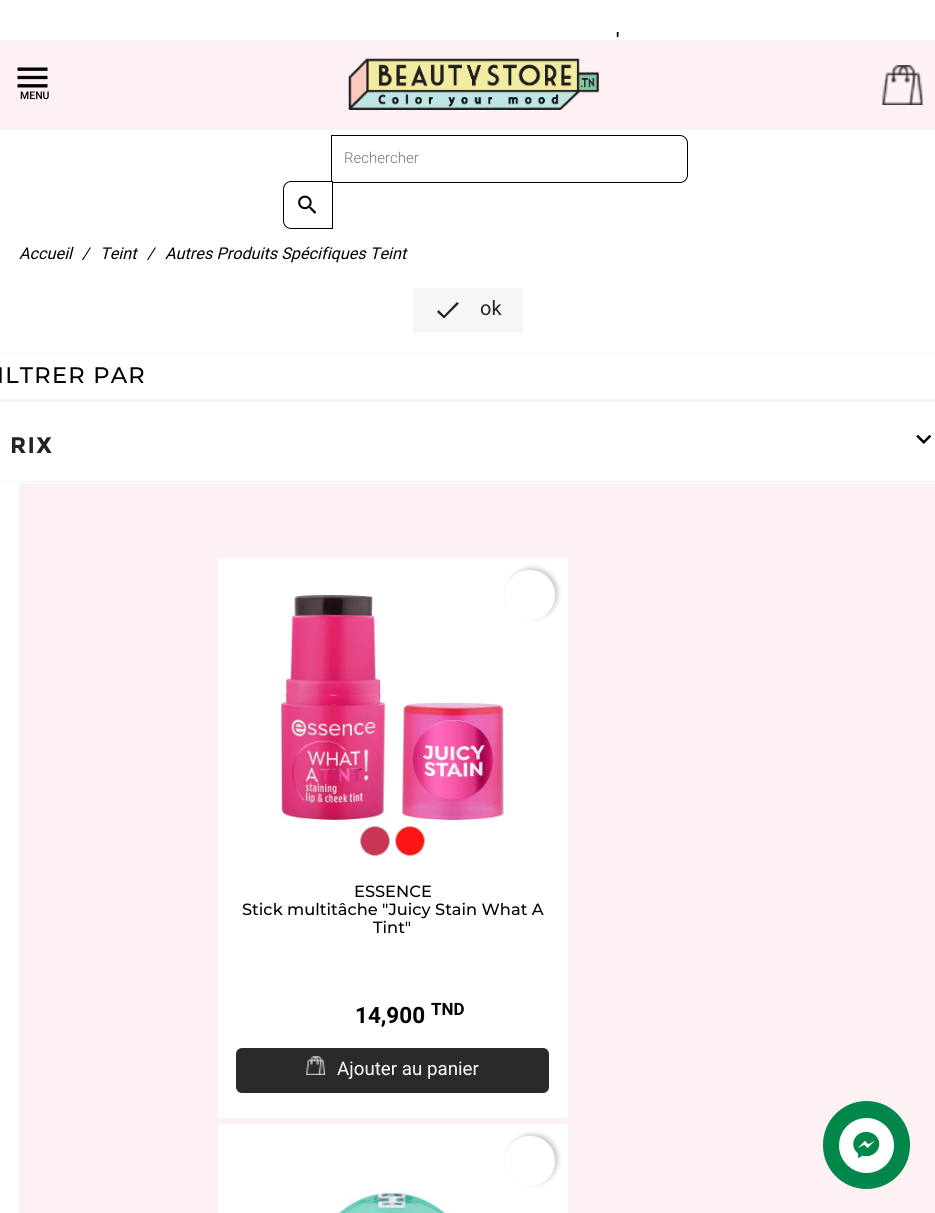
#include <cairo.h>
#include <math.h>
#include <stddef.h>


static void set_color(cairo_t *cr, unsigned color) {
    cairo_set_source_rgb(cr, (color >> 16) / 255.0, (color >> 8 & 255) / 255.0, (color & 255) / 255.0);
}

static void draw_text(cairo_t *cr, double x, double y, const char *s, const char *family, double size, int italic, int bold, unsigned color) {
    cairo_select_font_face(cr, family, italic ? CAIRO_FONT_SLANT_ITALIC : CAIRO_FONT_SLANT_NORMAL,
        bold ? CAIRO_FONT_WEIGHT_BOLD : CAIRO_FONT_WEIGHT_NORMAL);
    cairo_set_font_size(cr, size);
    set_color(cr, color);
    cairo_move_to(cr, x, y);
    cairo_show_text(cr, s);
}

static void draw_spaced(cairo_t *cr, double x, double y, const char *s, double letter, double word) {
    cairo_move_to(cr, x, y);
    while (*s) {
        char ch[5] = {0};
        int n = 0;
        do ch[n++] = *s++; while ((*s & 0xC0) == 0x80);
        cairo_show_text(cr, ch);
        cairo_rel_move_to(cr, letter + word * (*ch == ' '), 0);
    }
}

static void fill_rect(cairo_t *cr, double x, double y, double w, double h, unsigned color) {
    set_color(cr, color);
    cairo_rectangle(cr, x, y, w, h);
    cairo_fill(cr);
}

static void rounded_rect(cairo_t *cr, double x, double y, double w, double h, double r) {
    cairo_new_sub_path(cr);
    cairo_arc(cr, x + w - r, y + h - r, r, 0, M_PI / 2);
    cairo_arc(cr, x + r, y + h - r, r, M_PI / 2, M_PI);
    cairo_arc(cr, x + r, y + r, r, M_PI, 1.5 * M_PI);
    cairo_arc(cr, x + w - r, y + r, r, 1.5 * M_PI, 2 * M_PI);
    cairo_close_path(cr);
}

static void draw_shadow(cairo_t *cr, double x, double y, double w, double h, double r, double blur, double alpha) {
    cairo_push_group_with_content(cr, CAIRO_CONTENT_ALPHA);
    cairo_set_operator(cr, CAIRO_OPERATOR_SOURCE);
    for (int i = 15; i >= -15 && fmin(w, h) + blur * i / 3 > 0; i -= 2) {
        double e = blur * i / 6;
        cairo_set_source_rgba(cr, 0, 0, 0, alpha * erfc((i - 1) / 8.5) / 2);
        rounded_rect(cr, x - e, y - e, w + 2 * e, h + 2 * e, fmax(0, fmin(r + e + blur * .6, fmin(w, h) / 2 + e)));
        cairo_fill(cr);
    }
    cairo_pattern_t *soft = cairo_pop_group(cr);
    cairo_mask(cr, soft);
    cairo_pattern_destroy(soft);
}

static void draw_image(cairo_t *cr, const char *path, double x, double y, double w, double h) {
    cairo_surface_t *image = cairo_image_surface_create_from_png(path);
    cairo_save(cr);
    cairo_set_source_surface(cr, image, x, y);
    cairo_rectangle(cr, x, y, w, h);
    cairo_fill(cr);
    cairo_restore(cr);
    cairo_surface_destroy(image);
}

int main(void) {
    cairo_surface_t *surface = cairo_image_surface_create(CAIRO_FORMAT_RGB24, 935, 1213);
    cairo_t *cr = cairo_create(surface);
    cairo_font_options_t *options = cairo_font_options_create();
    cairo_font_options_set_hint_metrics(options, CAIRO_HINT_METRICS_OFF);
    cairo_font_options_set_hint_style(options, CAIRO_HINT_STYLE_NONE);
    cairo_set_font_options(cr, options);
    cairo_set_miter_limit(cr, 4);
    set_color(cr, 0xFFFFFF);
    cairo_paint(cr);
    fill_rect(cr, 0, 40, 935, 90, 0xFDF1F3);
    draw_text(cr, 616, 47, "'", "Roboto Medium", 20, 0, 0, 0x000000);
    draw_image(cr, "assets/img1.png", 17, 67, 31, 21);
    draw_text(cr, 20, 99, "MENU", "Roboto Medium", 10.5, 0, 0, 0x000000);
    draw_image(cr, "assets/img2.png", 882, 65, 41, 40);
    draw_image(cr, "assets/img3.png", 348, 58, 251, 52);
    cairo_new_path(cr);
    cairo_move_to(cr, 331.5, 135.5);
    cairo_line_to(cr, 680, 135.5);
    cairo_curve_to(cr, 684, 135.5, 687.5, 139, 687.5, 143);
    cairo_line_to(cr, 687.5, 175);
    cairo_curve_to(cr, 687.5, 179, 684, 182.5, 680, 182.5);
    cairo_line_to(cr, 331.5, 182.5);
    cairo_close_path(cr);
    cairo_set_line_width(cr, 1);
    cairo_stroke(cr);
    draw_text(cr, 344, 163, "Rechercher", "Roboto Light", 15, 0, 0, 0x757575);
    set_color(cr, 0xFFFFFF);
    cairo_new_path(cr);
    cairo_move_to(cr, 291, 181.5);
    cairo_line_to(cr, 332.5, 181.5);
    cairo_line_to(cr, 332.5, 228.5);
    cairo_line_to(cr, 291, 228.5);
    cairo_curve_to(cr, 287, 228.5, 283.5, 225, 283.5, 221);
    cairo_line_to(cr, 283.5, 189);
    cairo_curve_to(cr, 283.5, 185, 287, 181.5, 291, 181.5);
    cairo_close_path(cr);
    cairo_fill_preserve(cr);
    set_color(cr, 0x000000);
    cairo_stroke(cr);
    draw_image(cr, "assets/img4.png", 298, 195, 19, 19);
    draw_text(cr, 19, 259, "Accueil", "Roboto", 16.25, 1, 0, 0x000000);
    draw_text(cr, 82, 259, "/", "Roboto", 16.25, 1, 0, 0x000000);
    draw_text(cr, 100, 259, "Teint", "Roboto", 16.25, 1, 0, 0x000000);
    draw_text(cr, 147, 259, "/", "Roboto", 16.25, 1, 0, 0x000000);
    draw_text(cr, 165, 259, "Autres Produits Spécifiques Teint", "Roboto", 16.25, 1, 0, 0x000000);
    fill_rect(cr, 413, 288, 110, 45, 0xF6F6F6);
    set_color(cr, 0x232323);
    cairo_new_path(cr);
    cairo_move_to(cr, 444, 315.5);
    cairo_line_to(cr, 457, 302);
    cairo_line_to(cr, 459, 303.5);
    cairo_line_to(cr, 444, 318.5);
    cairo_line_to(cr, 437, 312);
    cairo_line_to(cr, 438.5, 310);
    cairo_close_path(cr);
    cairo_fill(cr);
    draw_text(cr, 480, 315, "ok", "Roboto", 20, 0, 0, 0x232323);
    fill_rect(cr, 0, 353, 935, 1, 0xF6F6F6);
    fill_rect(cr, 0, 399, 935, 3, 0xFDF1F3);
    cairo_select_font_face(cr, "Montserrat Medium", CAIRO_FONT_SLANT_NORMAL, CAIRO_FONT_WEIGHT_NORMAL);
    cairo_set_font_size(cr, 22.5);
    set_color(cr, 0x000000);
    draw_spaced(cr, -3, 383, "ILTRER PAR", 1.25, 0);
    fill_rect(cr, 0, 481, 935, 1, 0xF6F6F6);
    cairo_select_font_face(cr, "Montserrat", CAIRO_FONT_SLANT_NORMAL, CAIRO_FONT_WEIGHT_BOLD);
    set_color(cr, 0x232323);
    draw_spaced(cr, 10, 453, "RIX", 1.25, 0);
    draw_image(cr, "assets/img5.png", 916, 434, 16, 10);
    fill_rect(cr, 19, 483, 916, 730, 0xFDF1F3);
    fill_rect(cr, 218, 558, 350, 560, 0xFFFFFF);
    draw_image(cr, "assets/img6.png", 280, 595, 225, 225);
    set_color(cr, 0x000000);
    draw_shadow(cr, 508, 568, 50, 50, 25, 2.5, 0.2);
    set_color(cr, 0xFFFFFF);
    cairo_arc(cr, 530, 595, 25, 0, 2 * M_PI);
    cairo_fill(cr);
    set_color(cr, 0xC83653);
    cairo_arc(cr, 375, 841, 14.5, 0, 2 * M_PI);
    cairo_fill_preserve(cr);
    set_color(cr, 0xC8B9B9);
    cairo_stroke(cr);
    set_color(cr, 0xFF1515);
    cairo_arc(cr, 410, 841, 14.5, 0, 2 * M_PI);
    cairo_fill_preserve(cr);
    set_color(cr, 0xC8B9B9);
    cairo_stroke(cr);
    draw_text(cr, 354, 897, "ESSENCE", "Montserrat Medium", 16.25, 0, 0, 0x000000);
    draw_text(cr, 242, 915, "Stick multitâche \"Juicy Stain What A", "Montserrat Medium", 16.25, 0, 0, 0x000000);
    draw_text(cr, 373, 933, "Tint\"", "Montserrat Medium", 16.25, 0, 0, 0x000000);
    draw_text(cr, 355, 1023, "14,900", "Roboto", 22.5, 0, 1, 0x000000);
    draw_text(cr, 431, 1015, "TND", "Roboto", 17, 0, 1, 0x000000);
    set_color(cr, 0x2A2A2A);
    rounded_rect(cr, 236, 1048, 313, 45, 6);
    cairo_fill(cr);
    draw_image(cr, "assets/img7.png", 306, 1056, 19, 19);
    draw_text(cr, 337, 1075, "Ajouter au panier", "Roboto", 18.75, 0, 0, 0xFFFFFF);
    fill_rect(cr, 218, 1124, 350, 89, 0xFFFFFF);
    set_color(cr, 0x000000);
    draw_shadow(cr, 508, 1134, 50, 50, 25, 2.5, 0.2);
    set_color(cr, 0xFFFFFF);
    cairo_arc(cr, 530, 1161, 25, 0, 2 * M_PI);
    cairo_fill(cr);
    draw_image(cr, "assets/img8.png", 338, 1190, 115, 23);
    set_color(cr, 0x008749);
    rounded_rect(cr, 823, 1101, 87, 88, 43.5);
    cairo_fill(cr);
    set_color(cr, 0xFFFFFF);
    cairo_arc(cr, 866.5, 1145.5, 27.5, 0, 2 * M_PI);
    cairo_fill(cr);
    draw_image(cr, "assets/img9.png", 853, 1131, 27, 27);
    cairo_surface_write_to_png(surface, "output.png");
    cairo_font_options_destroy(options);
    cairo_destroy(cr);
    cairo_surface_destroy(surface);
    return 0;
}
